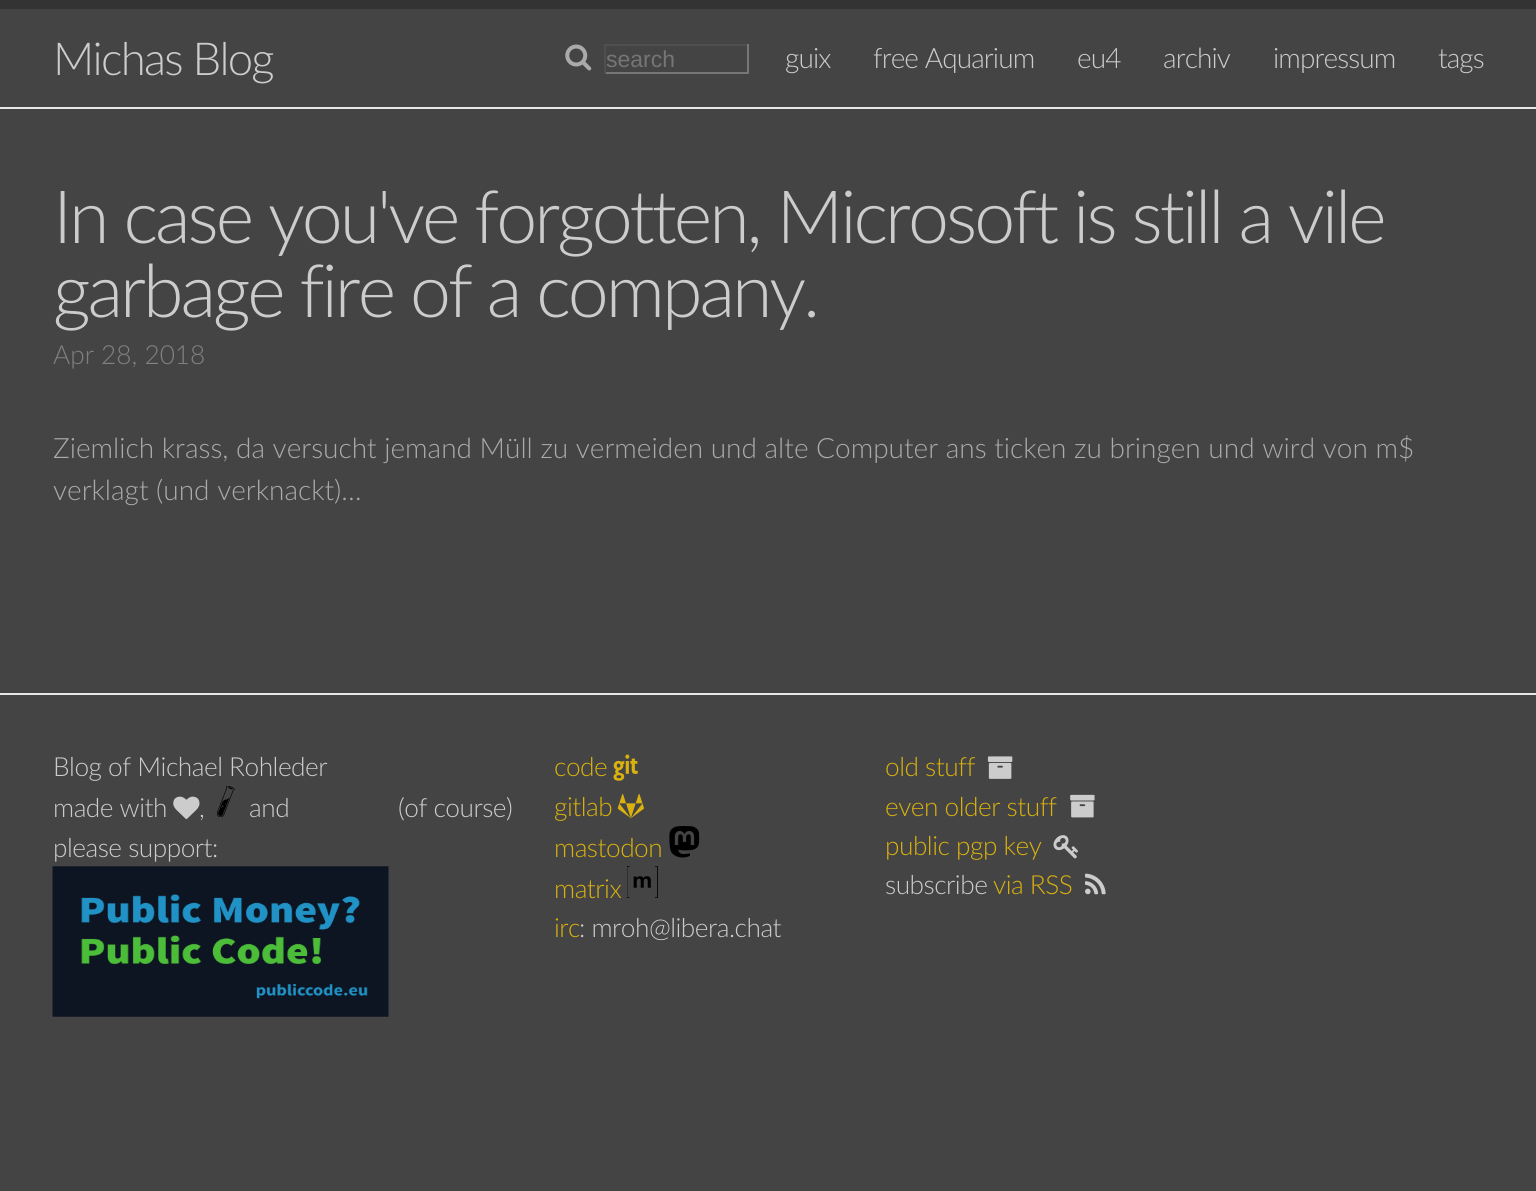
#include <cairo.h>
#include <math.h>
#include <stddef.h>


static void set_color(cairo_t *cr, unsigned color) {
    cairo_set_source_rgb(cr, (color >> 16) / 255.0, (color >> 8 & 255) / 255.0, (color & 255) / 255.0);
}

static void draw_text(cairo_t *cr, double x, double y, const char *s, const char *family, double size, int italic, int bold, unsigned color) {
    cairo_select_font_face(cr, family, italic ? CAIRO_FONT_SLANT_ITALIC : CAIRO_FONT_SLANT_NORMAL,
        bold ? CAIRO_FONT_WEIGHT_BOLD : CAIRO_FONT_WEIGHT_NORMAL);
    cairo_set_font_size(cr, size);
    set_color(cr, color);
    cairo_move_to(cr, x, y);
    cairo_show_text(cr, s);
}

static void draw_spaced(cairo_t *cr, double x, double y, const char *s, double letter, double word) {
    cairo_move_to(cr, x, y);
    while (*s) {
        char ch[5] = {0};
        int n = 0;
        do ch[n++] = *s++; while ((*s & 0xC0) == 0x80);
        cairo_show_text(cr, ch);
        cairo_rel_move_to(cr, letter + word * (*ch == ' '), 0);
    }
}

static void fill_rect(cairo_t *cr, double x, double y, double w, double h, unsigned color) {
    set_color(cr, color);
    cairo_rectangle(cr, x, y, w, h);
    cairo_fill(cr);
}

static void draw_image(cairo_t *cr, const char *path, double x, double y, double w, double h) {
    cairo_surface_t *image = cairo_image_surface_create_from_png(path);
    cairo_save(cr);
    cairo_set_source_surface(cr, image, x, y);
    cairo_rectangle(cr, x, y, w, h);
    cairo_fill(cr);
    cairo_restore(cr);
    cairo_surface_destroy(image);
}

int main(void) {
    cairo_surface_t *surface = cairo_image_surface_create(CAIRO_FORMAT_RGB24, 1536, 1191);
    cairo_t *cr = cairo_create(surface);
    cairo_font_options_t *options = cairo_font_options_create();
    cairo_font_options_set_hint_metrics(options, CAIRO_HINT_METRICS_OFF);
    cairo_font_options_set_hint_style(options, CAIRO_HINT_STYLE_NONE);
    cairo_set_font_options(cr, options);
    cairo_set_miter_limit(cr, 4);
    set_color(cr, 0x444444);
    cairo_paint(cr);
    fill_rect(cr, 0, 0, 1536, 9, 0x333333);
    fill_rect(cr, 0, 107, 1536, 2, 0xE8E8E8);
    cairo_select_font_face(cr, "Lato Light", CAIRO_FONT_SLANT_NORMAL, CAIRO_FONT_WEIGHT_NORMAL);
    cairo_set_font_size(cr, 45.5);
    set_color(cr, 0xCCCCCC);
    draw_spaced(cr, 53, 75, "Michas Blog", -1.75, 0);
    draw_image(cr, "assets/img1.png", 565, 44, 27, 27);
    fill_rect(cr, 604, 44, 145, 2, 0x4F4F4F);
    fill_rect(cr, 747, 44, 2, 30, 0x767676);
    fill_rect(cr, 604, 72, 145, 2, 0x767676);
    fill_rect(cr, 604, 44, 2, 30, 0x4F4F4F);
    draw_text(cr, 606, 67, "search", "Liberation Sans", 23, 0, 0, 0x757575);
    cairo_select_font_face(cr, "Lato Light", CAIRO_FONT_SLANT_NORMAL, CAIRO_FONT_WEIGHT_NORMAL);
    cairo_set_font_size(cr, 28);
    set_color(cr, 0xCCCCCC);
    draw_spaced(cr, 785, 68, "guix", -0.9, 0);
    draw_spaced(cr, 873, 68, "free Aquarium", -0.9, 0);
    draw_spaced(cr, 1077, 68, "eu4", -0.9, 0);
    draw_spaced(cr, 1163, 68, "archiv", -0.9, 0);
    draw_spaced(cr, 1273, 68, "impressum", -0.9, 0);
    draw_spaced(cr, 1438, 68, "tags", -0.9, 0);
    cairo_set_font_size(cr, 73.5);
    draw_spaced(cr, 53, 243, "In case you've forgotten, Microsoft is still a vile", -3.05, 0);
    draw_spaced(cr, 53, 317, "garbage fire of a company.", -3.05, 0);
    draw_text(cr, 53, 364, "Apr 28, 2018", "Lato Light", 26.25, 0, 0, 0x818181);
    draw_text(cr, 53, 458, "Ziemlich krass, da versucht jemand Müll zu vermeiden und alte Computer ans ticken zu bringen und wird von m$", "Lato Light", 28, 0, 0, 0xAAAAAA);
    draw_text(cr, 53, 500, "verklagt (und verknackt)…", "Lato Light", 28, 0, 0, 0xAAAAAA);
    fill_rect(cr, 0, 693, 1536, 2, 0xE8E8E8);
    cairo_set_font_size(cr, 26.25);
    set_color(cr, 0xCCCCCC);
    draw_spaced(cr, 53, 776, "Blog of Michael Rohleder", -0.5, 0);
    draw_spaced(cr, 53, 817, "made with", -0.5, 0);
    draw_image(cr, "assets/img2.png", 173, 796, 27, 24);
    draw_spaced(cr, 199, 817, ",", -0.5, 0);
    draw_image(cr, "assets/img3.png", 216, 786, 19, 31);
    draw_spaced(cr, 249, 817, "and", -0.5, 0);
    draw_spaced(cr, 398, 817, "(of course)", -0.5, 0);
    draw_spaced(cr, 53, 857, "please support:", -0.5, 0);
    draw_image(cr, "assets/img4.png", 52, 866, 337, 151);
    set_color(cr, 0xDAB10E);
    draw_spaced(cr, 554, 776, "code", -0.5, 0);
    draw_image(cr, "assets/img5.png", 613, 754, 25, 27);
    draw_spaced(cr, 554, 816, "gitlab", -0.5, 0);
    draw_image(cr, "assets/img6.png", 617, 794, 27, 25);
    draw_spaced(cr, 554, 857, "mastodon", -0.5, 0);
    draw_image(cr, "assets/img7.png", 669, 826, 31, 32);
    draw_spaced(cr, 554, 898, "matrix", -0.5, 0);
    draw_image(cr, "assets/img8.png", 627, 866, 31, 32);
    draw_spaced(cr, 554, 937, "irc", -0.5, 0);
    set_color(cr, 0xCCCCCC);
    draw_spaced(cr, 579, 937, ": mroh@libera.chat", -0.5, 0);
    set_color(cr, 0xDAB10E);
    draw_spaced(cr, 885, 776, "old stuff", -0.5, 0);
    draw_image(cr, "assets/img9.png", 987, 756, 26, 23);
    draw_spaced(cr, 885, 816, "even older stuff", -0.5, 0);
    draw_image(cr, "assets/img10.png", 1070, 794, 25, 24);
    draw_spaced(cr, 885, 855, "public pgp key", -0.5, 0);
    draw_image(cr, "assets/img11.png", 1053, 835, 25, 24);
    set_color(cr, 0xCCCCCC);
    draw_spaced(cr, 885, 894, "subscribe", -0.5, 0);
    set_color(cr, 0xDAB10E);
    draw_spaced(cr, 993, 894, "via RSS", -0.5, 0);
    draw_image(cr, "assets/img12.png", 1085, 873, 21, 22);
    cairo_surface_write_to_png(surface, "output.png");
    cairo_font_options_destroy(options);
    cairo_destroy(cr);
    cairo_surface_destroy(surface);
    return 0;
}
